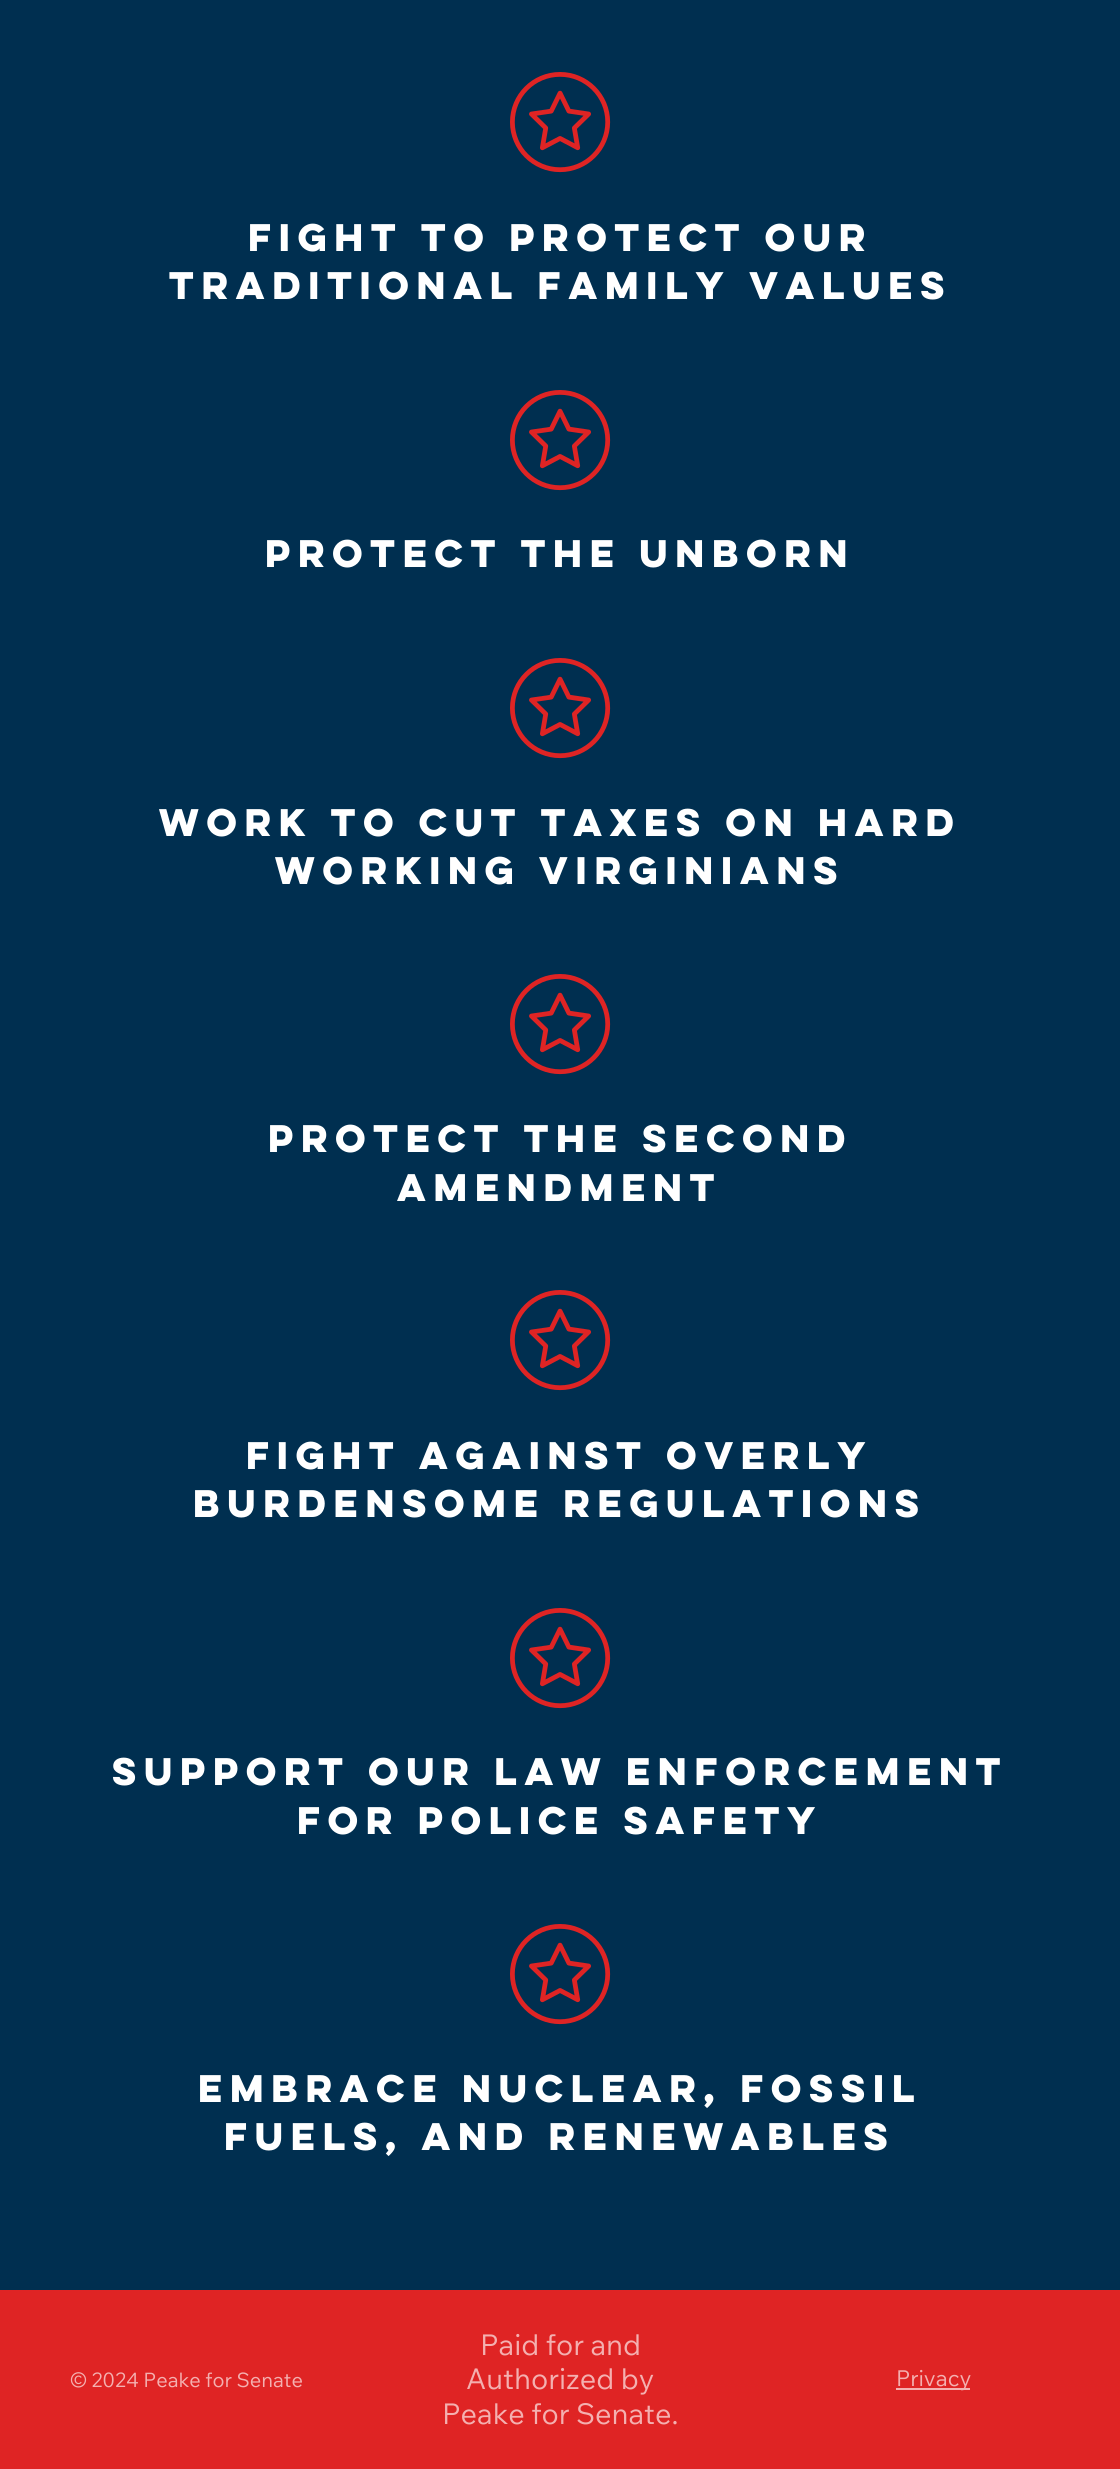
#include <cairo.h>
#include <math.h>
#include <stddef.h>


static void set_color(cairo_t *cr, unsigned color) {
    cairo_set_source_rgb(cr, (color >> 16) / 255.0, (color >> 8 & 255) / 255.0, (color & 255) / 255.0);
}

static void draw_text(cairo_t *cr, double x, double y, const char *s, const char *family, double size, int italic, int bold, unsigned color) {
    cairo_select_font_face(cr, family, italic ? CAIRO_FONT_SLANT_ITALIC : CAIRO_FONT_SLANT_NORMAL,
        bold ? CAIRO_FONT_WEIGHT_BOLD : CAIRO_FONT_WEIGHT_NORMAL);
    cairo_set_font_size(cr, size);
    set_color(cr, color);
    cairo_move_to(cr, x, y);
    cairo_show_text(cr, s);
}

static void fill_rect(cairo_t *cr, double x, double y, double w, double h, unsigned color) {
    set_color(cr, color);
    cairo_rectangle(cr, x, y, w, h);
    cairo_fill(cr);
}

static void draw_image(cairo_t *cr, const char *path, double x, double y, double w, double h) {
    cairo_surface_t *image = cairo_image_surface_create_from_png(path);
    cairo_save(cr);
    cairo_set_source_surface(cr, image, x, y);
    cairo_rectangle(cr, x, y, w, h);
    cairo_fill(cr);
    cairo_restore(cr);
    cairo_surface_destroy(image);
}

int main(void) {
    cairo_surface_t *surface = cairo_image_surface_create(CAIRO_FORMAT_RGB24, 1120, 2469);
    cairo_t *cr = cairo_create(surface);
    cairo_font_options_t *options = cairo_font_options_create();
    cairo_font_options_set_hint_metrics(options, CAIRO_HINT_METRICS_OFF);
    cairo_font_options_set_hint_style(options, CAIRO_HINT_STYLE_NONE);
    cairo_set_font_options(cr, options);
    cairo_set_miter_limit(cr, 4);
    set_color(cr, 0x002F50);
    cairo_paint(cr);
    draw_image(cr, "assets/img1.png", 510, 72, 101, 101);
    draw_text(cr, 248, 251, "Fight to Protect Our", "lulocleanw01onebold", 34.45, 0, 1, 0xFFFFFF);
    draw_text(cr, 169, 299, "Traditional Family Values", "lulocleanw01onebold", 34.45, 0, 1, 0xFFFFFF);
    draw_image(cr, "assets/img1.png", 510, 390, 101, 101);
    draw_text(cr, 265, 567, "Protect the Unborn", "lulocleanw01onebold", 34.45, 0, 1, 0xFFFFFF);
    draw_image(cr, "assets/img1.png", 510, 658, 101, 101);
    draw_text(cr, 159, 836, "Work to Cut Taxes on Hard", "lulocleanw01onebold", 34.45, 0, 1, 0xFFFFFF);
    draw_text(cr, 275, 884, "Working Virginians", "lulocleanw01onebold", 34.45, 0, 1, 0xFFFFFF);
    draw_image(cr, "assets/img1.png", 510, 974, 101, 101);
    draw_text(cr, 268, 1152, "Protect the Second", "lulocleanw01onebold", 34.45, 0, 1, 0xFFFFFF);
    draw_text(cr, 397, 1201, "Amendment", "lulocleanw01onebold", 34.45, 0, 1, 0xFFFFFF);
    draw_image(cr, "assets/img1.png", 510, 1290, 101, 101);
    draw_text(cr, 246, 1469, "Fight Against Overly", "lulocleanw01onebold", 34.45, 0, 1, 0xFFFFFF);
    draw_text(cr, 193, 1517, "Burdensome Regulations", "lulocleanw01onebold", 34.45, 0, 1, 0xFFFFFF);
    draw_image(cr, "assets/img1.png", 510, 1608, 101, 101);
    draw_text(cr, 112, 1785, "Support our Law Enforcement", "lulocleanw01onebold", 34.45, 0, 1, 0xFFFFFF);
    draw_text(cr, 297, 1834, "for Police Safety", "lulocleanw01onebold", 34.45, 0, 1, 0xFFFFFF);
    draw_image(cr, "assets/img1.png", 510, 1924, 101, 101);
    draw_text(cr, 198, 2102, "Embrace Nuclear, Fossil", "lulocleanw01onebold", 34.45, 0, 1, 0xFFFFFF);
    draw_text(cr, 224, 2150, "Fuels, and Renewables", "lulocleanw01onebold", 34.45, 0, 1, 0xFFFFFF);
    fill_rect(cr, 0, 2290, 1120, 179, 0xDF2424);
    draw_text(cr, 70, 2387, "© 2024 Peake for Senate", "Wix Madefor Text", 20, 0, 0, 0xF4B0B0);
    draw_text(cr, 480, 2355, "Paid for and", "Wix Madefor Text", 28.75, 0, 0, 0xF4B0B0);
    draw_text(cr, 466, 2389, "Authorized by", "Wix Madefor Text", 28.75, 0, 0, 0xF4B0B0);
    draw_text(cr, 442, 2424, "Peake for Senate.", "Wix Madefor Text", 28.75, 0, 0, 0xF4B0B0);
    fill_rect(cr, 896, 2388, 74, 2, 0xF4B0B0);
    draw_text(cr, 896, 2386, "Privacy", "Wix Madefor Text", 22, 0, 0, 0xF4B0B0);
    cairo_surface_write_to_png(surface, "output.png");
    cairo_font_options_destroy(options);
    cairo_destroy(cr);
    cairo_surface_destroy(surface);
    return 0;
}
